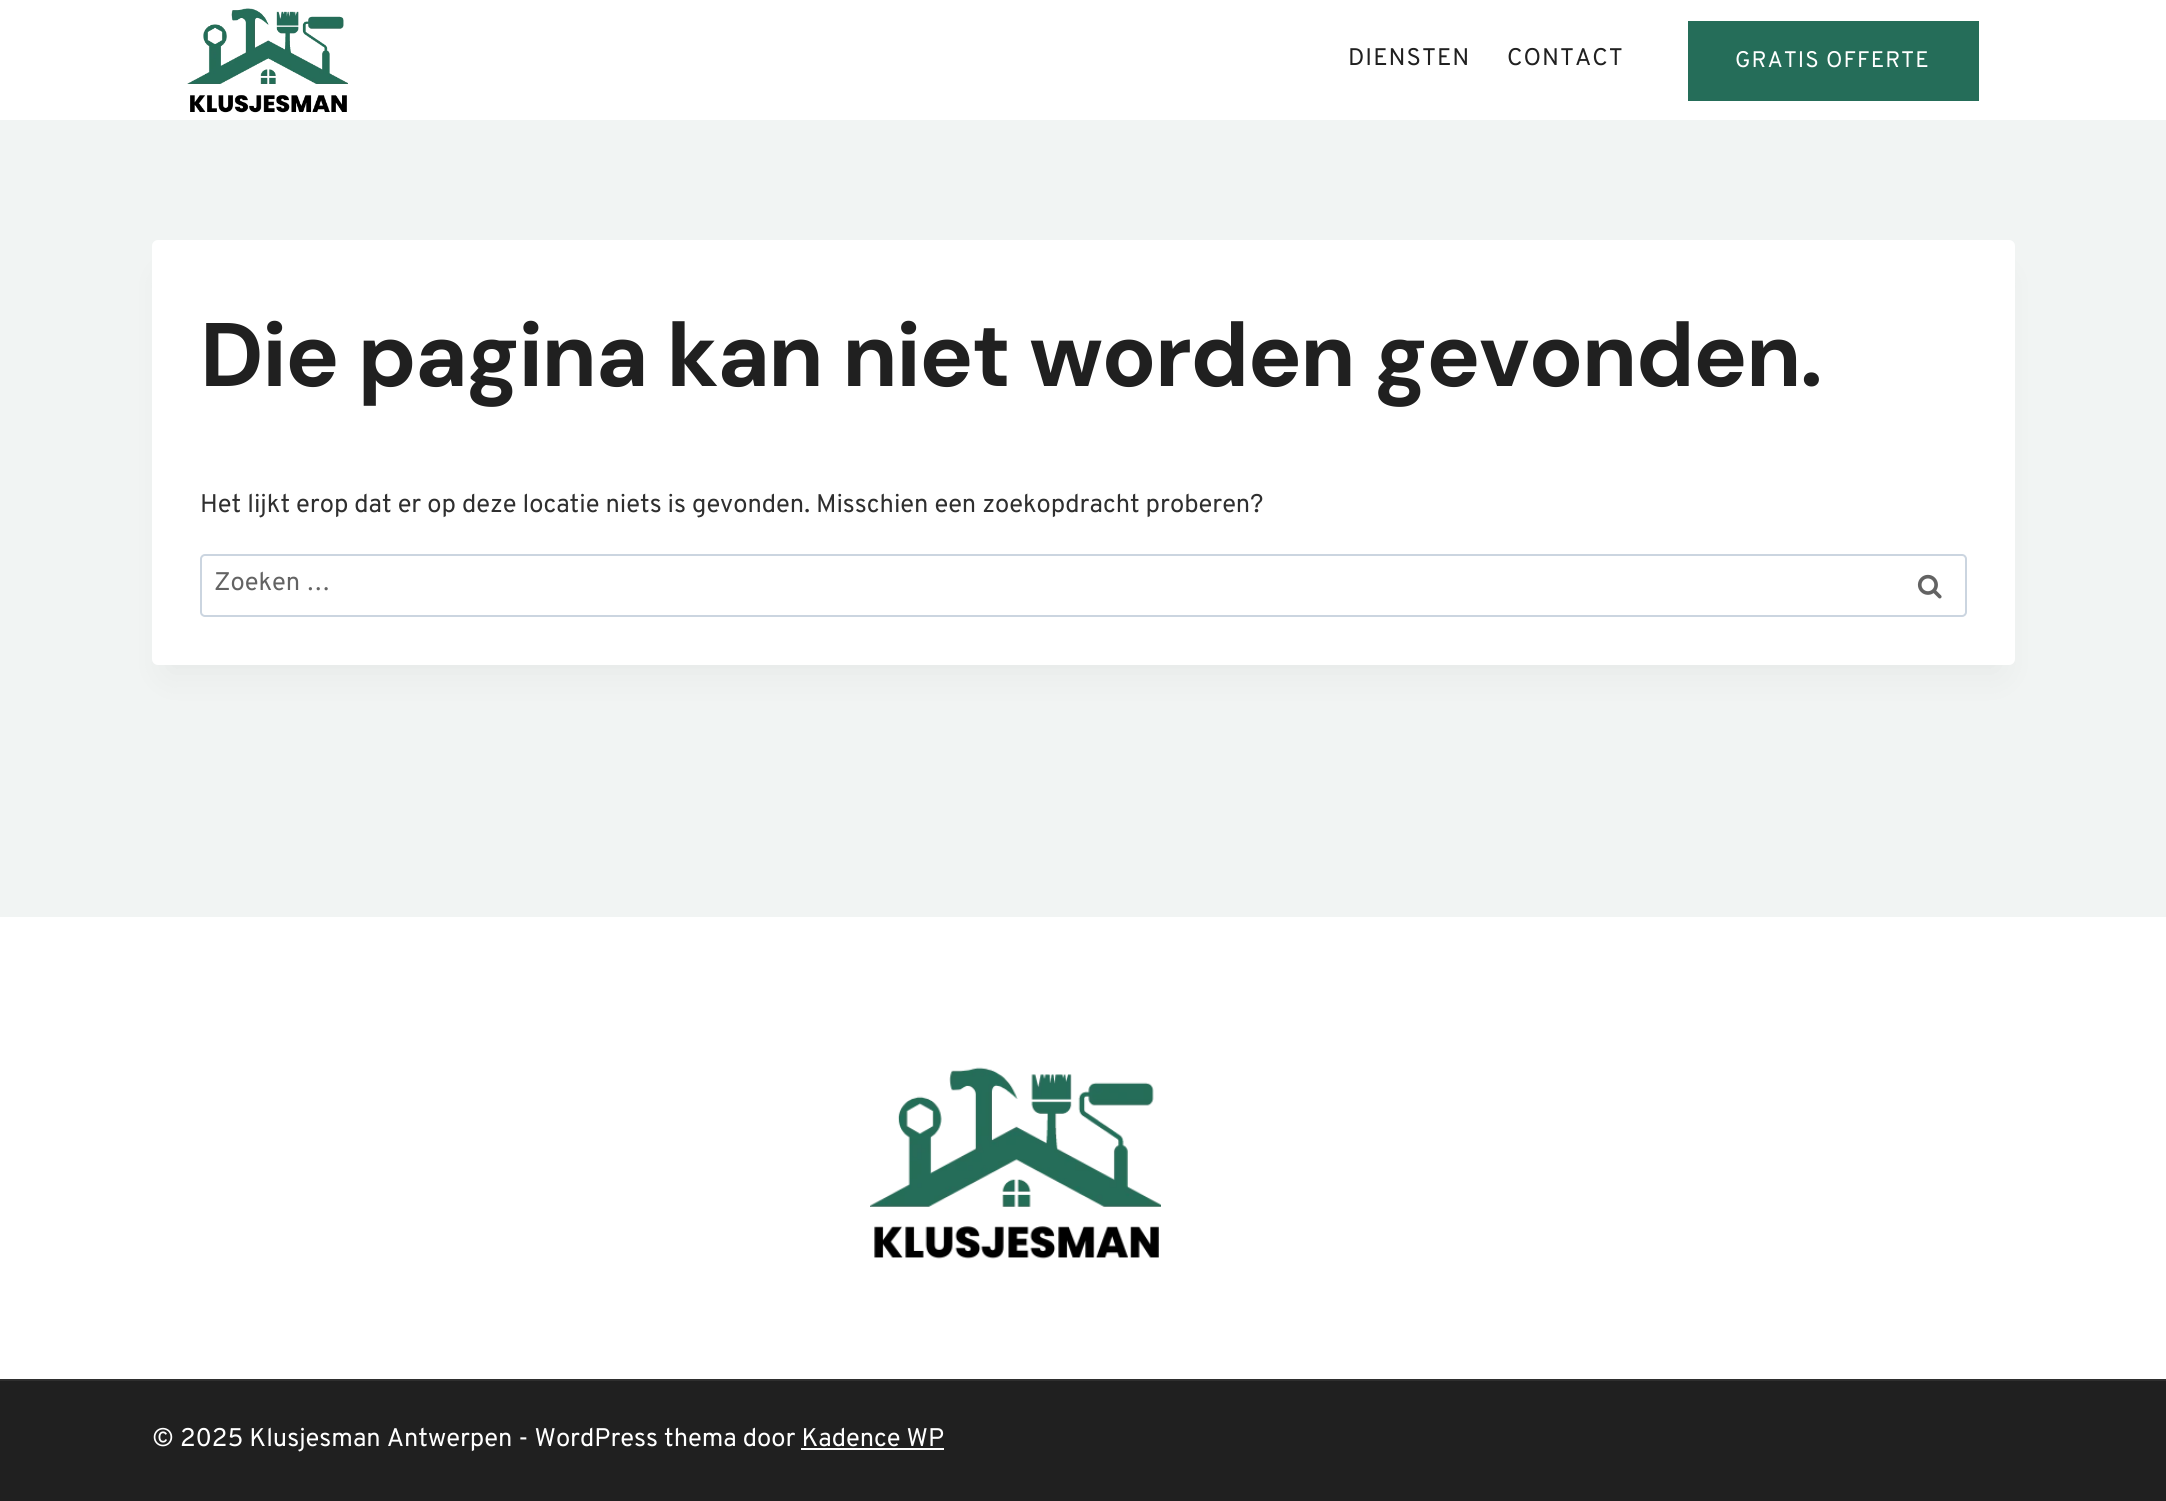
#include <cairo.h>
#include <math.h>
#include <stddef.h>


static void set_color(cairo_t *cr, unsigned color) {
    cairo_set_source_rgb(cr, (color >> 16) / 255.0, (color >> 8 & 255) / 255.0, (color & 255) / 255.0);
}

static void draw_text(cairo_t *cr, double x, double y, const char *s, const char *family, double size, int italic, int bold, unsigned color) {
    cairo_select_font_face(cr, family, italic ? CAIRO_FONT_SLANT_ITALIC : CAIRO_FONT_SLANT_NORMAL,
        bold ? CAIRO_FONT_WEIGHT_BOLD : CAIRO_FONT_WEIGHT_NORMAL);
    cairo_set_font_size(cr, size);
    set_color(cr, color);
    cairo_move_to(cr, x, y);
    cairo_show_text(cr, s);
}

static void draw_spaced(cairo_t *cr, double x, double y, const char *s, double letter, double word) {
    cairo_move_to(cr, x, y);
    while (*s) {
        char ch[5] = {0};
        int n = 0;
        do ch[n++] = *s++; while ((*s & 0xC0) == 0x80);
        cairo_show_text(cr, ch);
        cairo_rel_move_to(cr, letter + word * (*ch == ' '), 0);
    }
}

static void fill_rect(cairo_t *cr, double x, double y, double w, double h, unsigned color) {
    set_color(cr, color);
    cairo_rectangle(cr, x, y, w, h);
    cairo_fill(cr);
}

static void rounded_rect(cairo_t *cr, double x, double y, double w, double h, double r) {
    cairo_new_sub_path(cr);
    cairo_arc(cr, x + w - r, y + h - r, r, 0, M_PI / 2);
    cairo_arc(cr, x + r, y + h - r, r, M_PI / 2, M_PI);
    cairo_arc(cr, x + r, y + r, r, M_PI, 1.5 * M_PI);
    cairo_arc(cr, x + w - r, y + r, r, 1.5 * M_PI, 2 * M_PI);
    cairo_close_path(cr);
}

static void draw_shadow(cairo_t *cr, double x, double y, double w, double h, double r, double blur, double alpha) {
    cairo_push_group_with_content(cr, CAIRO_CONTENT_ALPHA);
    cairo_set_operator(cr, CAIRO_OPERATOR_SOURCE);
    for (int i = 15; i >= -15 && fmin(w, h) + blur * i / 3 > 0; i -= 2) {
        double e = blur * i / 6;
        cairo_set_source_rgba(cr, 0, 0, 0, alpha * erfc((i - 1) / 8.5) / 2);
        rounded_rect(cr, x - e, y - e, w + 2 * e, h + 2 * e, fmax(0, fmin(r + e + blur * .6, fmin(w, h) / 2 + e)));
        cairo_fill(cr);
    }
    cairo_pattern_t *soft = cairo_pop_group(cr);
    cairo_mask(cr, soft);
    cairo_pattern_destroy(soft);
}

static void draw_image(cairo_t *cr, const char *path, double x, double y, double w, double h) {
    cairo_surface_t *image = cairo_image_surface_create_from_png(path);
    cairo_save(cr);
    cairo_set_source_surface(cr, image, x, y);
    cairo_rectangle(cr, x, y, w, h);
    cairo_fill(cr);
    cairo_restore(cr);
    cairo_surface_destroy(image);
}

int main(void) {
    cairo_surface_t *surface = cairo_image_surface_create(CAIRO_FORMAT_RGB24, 2166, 1501);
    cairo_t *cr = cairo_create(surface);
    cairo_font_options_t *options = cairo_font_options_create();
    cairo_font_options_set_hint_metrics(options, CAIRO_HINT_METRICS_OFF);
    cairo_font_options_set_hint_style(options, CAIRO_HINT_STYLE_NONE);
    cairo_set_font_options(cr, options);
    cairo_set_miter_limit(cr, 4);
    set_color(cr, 0xF1F4F3);
    cairo_paint(cr);
    fill_rect(cr, 0, 0, 2166, 120, 0xFFFFFF);
    draw_image(cr, "assets/img1.png", 187, 8, 161, 105);
    cairo_select_font_face(cr, "Overpass", CAIRO_FONT_SLANT_NORMAL, CAIRO_FONT_WEIGHT_NORMAL);
    cairo_set_font_size(cr, 24);
    set_color(cr, 0x202020);
    draw_spaced(cr, 1348, 65, "DIENSTEN", 1, 0);
    draw_spaced(cr, 1507, 65, "CONTACT", 1, 0);
    fill_rect(cr, 1688, 21, 291, 80, 0x256D59);
    cairo_set_font_size(cr, 22.5);
    set_color(cr, 0xFFFFFF);
    draw_spaced(cr, 1735, 67, "GRATIS OFFERTE", 1, 0);
    set_color(cr, 0x000000);
    draw_shadow(cr, 167, 278, 1833, 394, 0, 19, 0.05);
    set_color(cr, 0xFFFFFF);
    rounded_rect(cr, 152, 240, 1863, 425, 6);
    cairo_fill(cr);
    cairo_select_font_face(cr, "DM Sans", CAIRO_FONT_SLANT_NORMAL, CAIRO_FONT_WEIGHT_BOLD);
    cairo_set_font_size(cr, 90);
    set_color(cr, 0x202020);
    draw_spaced(cr, 200, 386, "Die pagina kan niet worden gevonden.", -1.5, 0);
    draw_text(cr, 200, 512, "Het lijkt erop dat er op deze locatie niets is gevonden. Misschien een zoekopdracht proberen?", "Overpass", 25.5, 0, 0, 0x2F2F2F);
    rounded_rect(cr, 201, 555, 1765, 61, 4);
    set_color(cr, 0xCBD5E0);
    cairo_stroke(cr);
    draw_text(cr, 214, 590, "Zoeken …", "Overpass", 25.5, 0, 0, 0x636363);
    draw_image(cr, "assets/img2.png", 1917, 574, 25, 25);
    fill_rect(cr, 0, 1381, 2166, 120, 0x202020);
    fill_rect(cr, 0, 917, 2166, 462, 0xFFFFFF);
    fill_rect(cr, 0, 1379, 2166, 2, 0x2F2F2F);
    draw_image(cr, "assets/img3.png", 870, 1067, 291, 192);
    draw_text(cr, 152, 1446, "© 2025 Klusjesman Antwerpen - WordPress thema door Kadence WP", "Overpass", 25.5, 0, 0, 0xFFFFFF);
    fill_rect(cr, 801, 1448, 143, 2, 0xFFFFFF);
    cairo_surface_write_to_png(surface, "output.png");
    cairo_font_options_destroy(options);
    cairo_destroy(cr);
    cairo_surface_destroy(surface);
    return 0;
}
